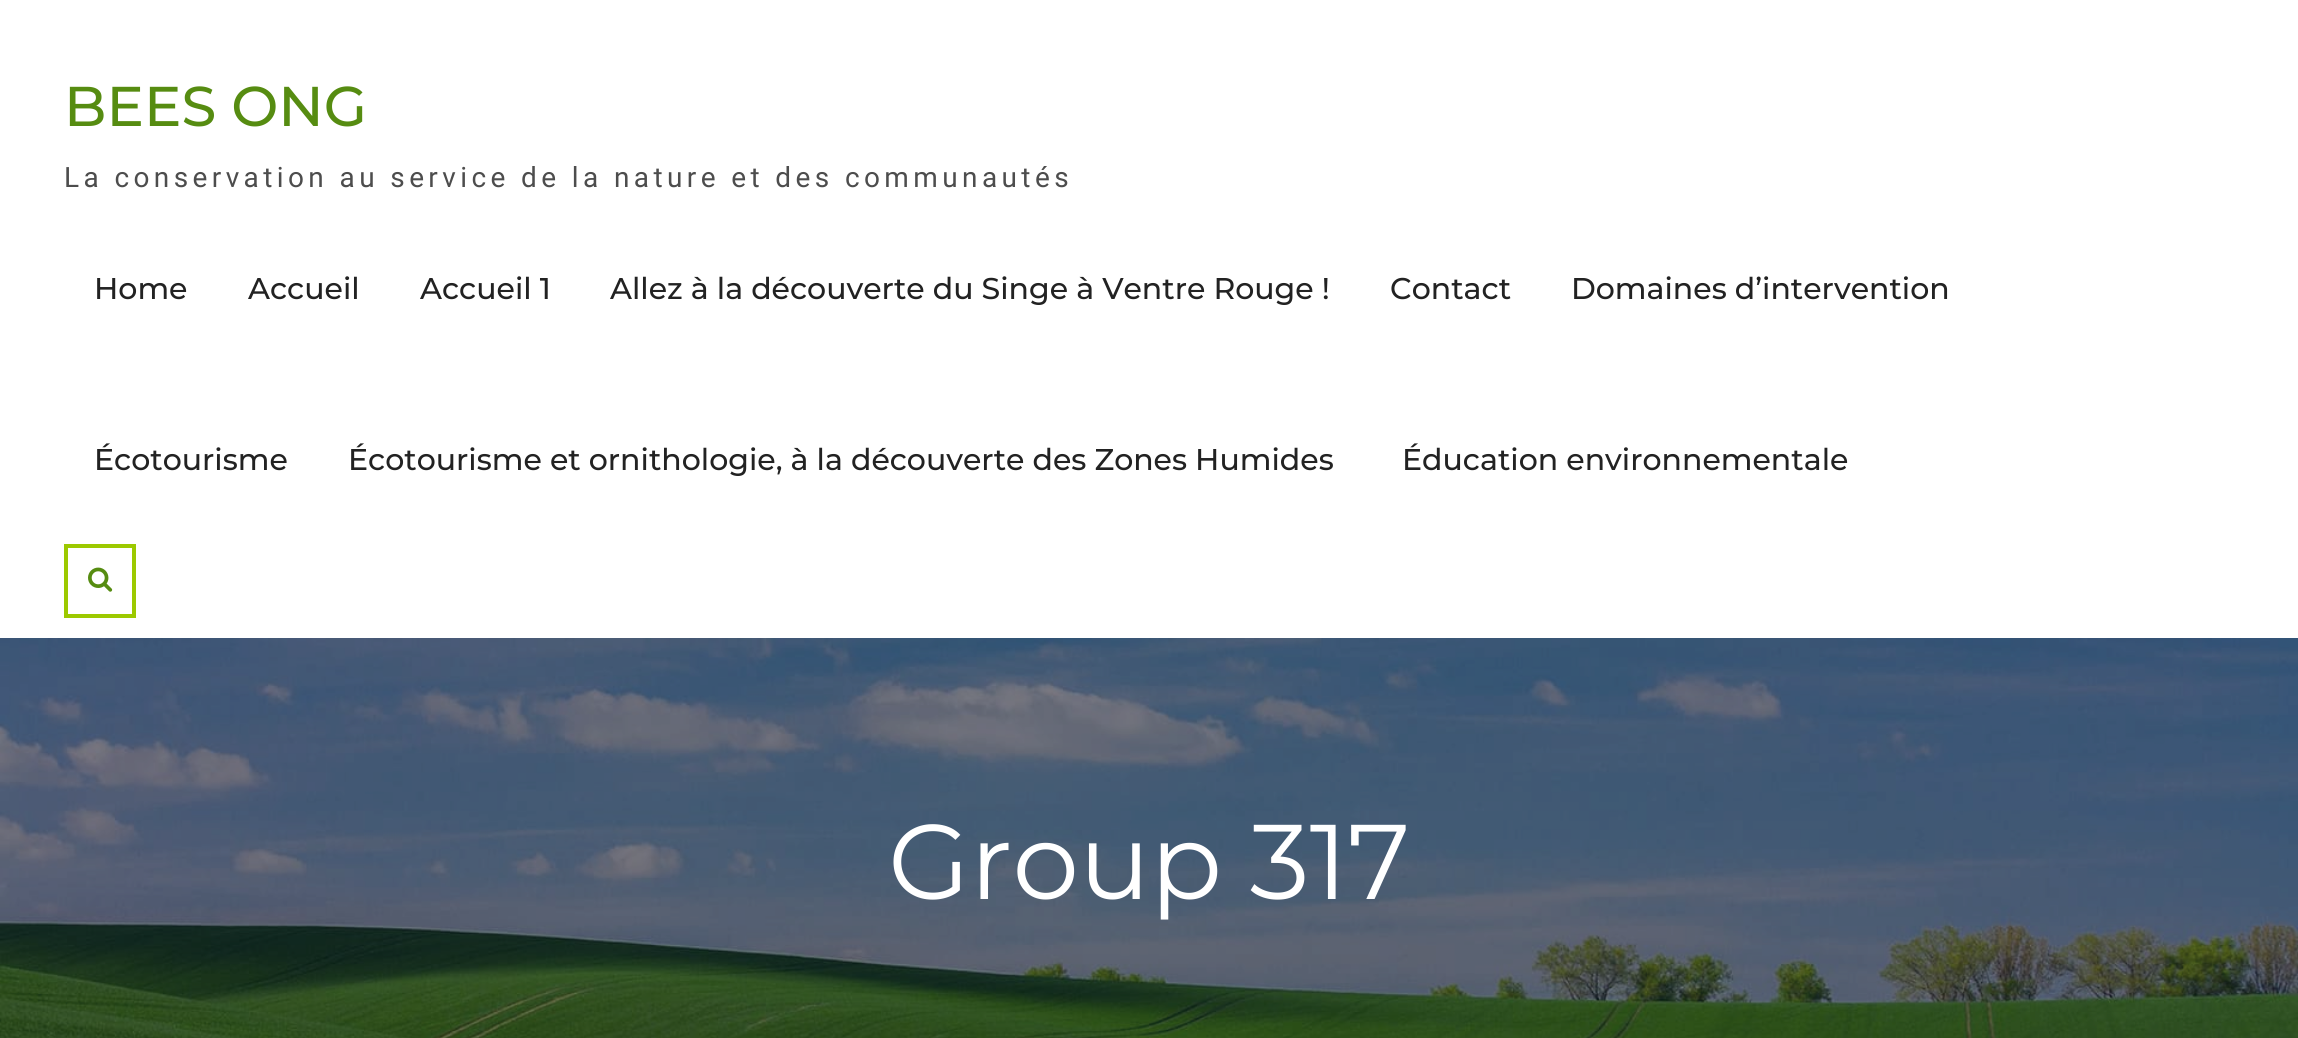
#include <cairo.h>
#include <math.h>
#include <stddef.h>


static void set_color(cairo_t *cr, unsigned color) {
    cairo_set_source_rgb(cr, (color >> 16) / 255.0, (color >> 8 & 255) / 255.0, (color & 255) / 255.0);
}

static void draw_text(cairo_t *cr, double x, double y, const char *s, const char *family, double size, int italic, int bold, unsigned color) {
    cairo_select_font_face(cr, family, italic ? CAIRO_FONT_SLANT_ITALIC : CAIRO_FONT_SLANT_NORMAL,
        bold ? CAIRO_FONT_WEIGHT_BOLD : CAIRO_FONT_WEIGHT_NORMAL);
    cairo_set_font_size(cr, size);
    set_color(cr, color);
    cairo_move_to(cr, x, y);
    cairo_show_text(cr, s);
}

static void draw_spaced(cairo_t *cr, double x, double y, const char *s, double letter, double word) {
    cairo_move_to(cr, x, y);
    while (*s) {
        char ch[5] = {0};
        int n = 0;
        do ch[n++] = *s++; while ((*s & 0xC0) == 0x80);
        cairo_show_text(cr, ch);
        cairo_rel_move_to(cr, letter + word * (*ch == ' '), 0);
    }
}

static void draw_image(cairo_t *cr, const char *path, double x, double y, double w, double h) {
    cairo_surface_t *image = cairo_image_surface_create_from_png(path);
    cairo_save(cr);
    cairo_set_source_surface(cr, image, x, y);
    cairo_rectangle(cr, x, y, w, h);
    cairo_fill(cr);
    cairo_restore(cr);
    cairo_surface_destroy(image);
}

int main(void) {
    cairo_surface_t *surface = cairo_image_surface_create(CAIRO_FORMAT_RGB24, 2298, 1038);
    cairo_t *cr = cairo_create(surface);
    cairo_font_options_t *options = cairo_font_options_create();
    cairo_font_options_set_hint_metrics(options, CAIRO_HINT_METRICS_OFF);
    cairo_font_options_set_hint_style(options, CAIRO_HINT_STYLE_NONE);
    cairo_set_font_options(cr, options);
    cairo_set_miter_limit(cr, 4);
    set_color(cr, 0xFFFFFF);
    cairo_paint(cr);
    draw_text(cr, 64, 126, "BEES ONG", "Montserrat Medium", 56, 0, 0, 0x568C11);
    cairo_select_font_face(cr, "Roboto", CAIRO_FONT_SLANT_NORMAL, CAIRO_FONT_WEIGHT_NORMAL);
    cairo_set_font_size(cr, 28);
    set_color(cr, 0x4D4D4D);
    draw_spaced(cr, 64, 187, "La conservation au service de la nature et des communautés", 4.4, 0);
    draw_text(cr, 94, 299, "Home", "Montserrat Medium", 30, 0, 0, 0x222222);
    draw_text(cr, 248, 299, "Accueil", "Montserrat Medium", 30, 0, 0, 0x222222);
    draw_text(cr, 420, 299, "Accueil 1", "Montserrat Medium", 30, 0, 0, 0x222222);
    draw_text(cr, 610, 299, "Allez à la découverte du Singe à Ventre Rouge !", "Montserrat Medium", 30, 0, 0, 0x222222);
    draw_text(cr, 1390, 299, "Contact", "Montserrat Medium", 30, 0, 0, 0x222222);
    draw_text(cr, 1571, 299, "Domaines d’intervention", "Montserrat Medium", 30, 0, 0, 0x222222);
    draw_text(cr, 94, 470, "Écotourisme", "Montserrat Medium", 30, 0, 0, 0x222222);
    draw_text(cr, 348, 470, "Écotourisme et ornithologie, à la découverte des Zones Humides", "Montserrat Medium", 30, 0, 0, 0x222222);
    draw_text(cr, 1402, 470, "Éducation environnementale", "Montserrat Medium", 30, 0, 0, 0x222222);
    cairo_rectangle(cr, 66, 546, 68, 70);
    set_color(cr, 0x9CC900);
    cairo_set_line_width(cr, 4);
    cairo_stroke(cr);
    draw_image(cr, "assets/img1.png", 88, 567, 25, 25);
    draw_image(cr, "assets/img2.png", 0, 638, 2298, 400);
    draw_text(cr, 888, 899, "Group 317", "Montserrat", 106, 0, 0, 0xFFFFFF);
    cairo_surface_write_to_png(surface, "output.png");
    cairo_font_options_destroy(options);
    cairo_destroy(cr);
    cairo_surface_destroy(surface);
    return 0;
}
